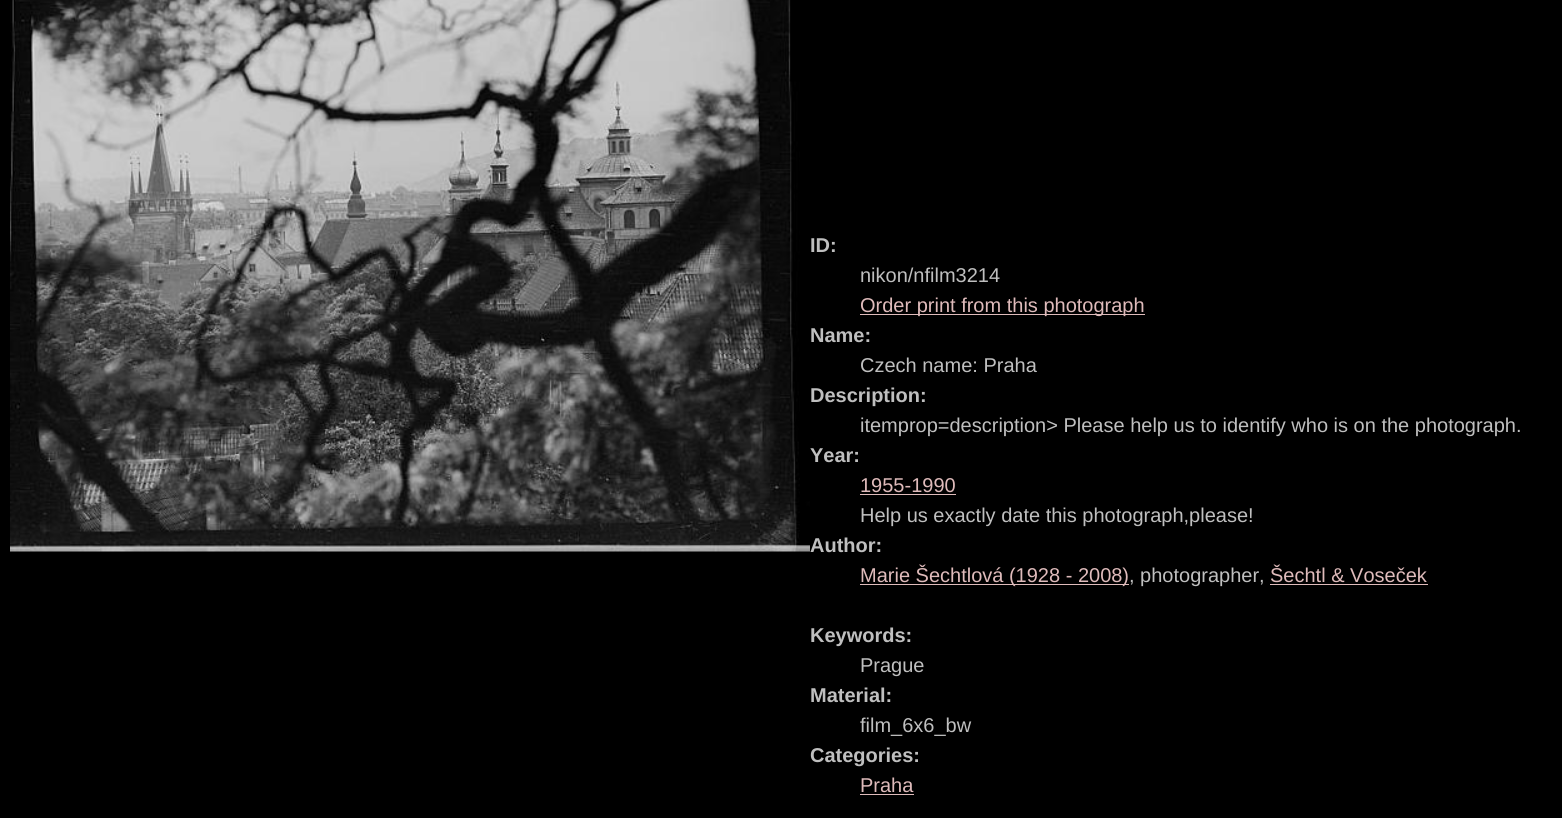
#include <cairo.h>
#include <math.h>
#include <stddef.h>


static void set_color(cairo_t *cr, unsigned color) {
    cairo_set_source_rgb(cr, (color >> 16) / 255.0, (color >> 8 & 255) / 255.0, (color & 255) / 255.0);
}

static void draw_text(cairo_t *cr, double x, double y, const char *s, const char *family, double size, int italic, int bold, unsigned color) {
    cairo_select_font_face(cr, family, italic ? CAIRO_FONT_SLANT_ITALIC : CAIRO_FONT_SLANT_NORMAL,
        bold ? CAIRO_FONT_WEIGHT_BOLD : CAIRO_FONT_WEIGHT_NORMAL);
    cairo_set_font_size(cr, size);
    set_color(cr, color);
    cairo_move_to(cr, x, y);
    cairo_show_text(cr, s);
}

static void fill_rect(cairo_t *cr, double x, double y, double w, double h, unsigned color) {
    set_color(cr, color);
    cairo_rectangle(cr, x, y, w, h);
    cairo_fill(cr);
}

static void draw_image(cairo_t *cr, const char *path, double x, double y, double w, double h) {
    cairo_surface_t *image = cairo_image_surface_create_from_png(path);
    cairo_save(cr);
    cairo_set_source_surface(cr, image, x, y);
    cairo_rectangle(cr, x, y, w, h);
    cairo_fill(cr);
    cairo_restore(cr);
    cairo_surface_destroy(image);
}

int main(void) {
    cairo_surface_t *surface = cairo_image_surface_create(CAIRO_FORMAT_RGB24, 1562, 818);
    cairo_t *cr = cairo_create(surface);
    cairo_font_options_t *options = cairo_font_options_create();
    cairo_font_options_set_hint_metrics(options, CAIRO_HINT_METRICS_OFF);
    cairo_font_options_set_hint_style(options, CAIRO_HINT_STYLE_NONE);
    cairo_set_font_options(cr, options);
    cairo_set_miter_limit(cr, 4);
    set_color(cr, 0x000000);
    cairo_paint(cr);
    draw_image(cr, "assets/img1.png", 10, 0, 800, 552);
    draw_text(cr, 810, 252, "ID:", "Liberation Sans", 20, 0, 1, 0xBFBFBF);
    draw_text(cr, 860, 282, "nikon/nfilm3214", "Liberation Sans", 20, 0, 0, 0xBFBFBF);
    fill_rect(cr, 860, 314, 285, 1, 0xDFBBBB);
    draw_text(cr, 860, 312, "Order print from this photograph", "Liberation Sans", 20, 0, 0, 0xDFBBBB);
    draw_text(cr, 810, 342, "Name:", "Liberation Sans", 20, 0, 1, 0xBFBFBF);
    draw_text(cr, 860, 372, "Czech name: Praha", "Liberation Sans", 20, 0, 0, 0xBFBFBF);
    draw_text(cr, 810, 402, "Description:", "Liberation Sans", 20, 0, 1, 0xBFBFBF);
    draw_text(cr, 860, 432, "itemprop=description> Please help us to identify who is on the photograph.", "Liberation Sans", 20, 0, 0, 0xBFBFBF);
    draw_text(cr, 810, 462, "Year:", "Liberation Sans", 20, 0, 1, 0xBFBFBF);
    draw_text(cr, 860, 492, "1955-1990", "Liberation Sans", 20, 0, 0, 0xDFBBBB);
    fill_rect(cr, 860, 494, 96, 1, 0xDFBBBB);
    draw_text(cr, 860, 522, "Help us exactly date this photograph,please!", "Liberation Sans", 20, 0, 0, 0xBFBFBF);
    draw_text(cr, 810, 552, "Author:", "Liberation Sans", 20, 0, 1, 0xBFBFBF);
    fill_rect(cr, 860, 584, 269, 1, 0xDFBBBB);
    draw_text(cr, 860, 582, "Marie Šechtlová (1928 - 2008)", "Liberation Sans", 20, 0, 0, 0xDFBBBB);
    draw_text(cr, 1129, 582, ", photographer,", "Liberation Sans", 20, 0, 0, 0xBFBFBF);
    draw_text(cr, 1270, 582, "Šechtl & Voseček", "Liberation Sans", 20, 0, 0, 0xDFBBBB);
    fill_rect(cr, 1270, 584, 158, 1, 0xDFBBBB);
    draw_text(cr, 810, 642, "Keywords:", "Liberation Sans", 20, 0, 1, 0xBFBFBF);
    draw_text(cr, 860, 672, "Prague", "Liberation Sans", 20, 0, 0, 0xBFBFBF);
    draw_text(cr, 810, 702, "Material:", "Liberation Sans", 20, 0, 1, 0xBFBFBF);
    draw_text(cr, 860, 732, "film_6x6_bw", "Liberation Sans", 20, 0, 0, 0xBFBFBF);
    draw_text(cr, 810, 762, "Categories:", "Liberation Sans", 20, 0, 1, 0xBFBFBF);
    draw_text(cr, 860, 792, "Praha", "Liberation Sans", 20, 0, 0, 0xDFBBBB);
    fill_rect(cr, 860, 794, 54, 1, 0xDFBBBB);
    cairo_surface_write_to_png(surface, "output.png");
    cairo_font_options_destroy(options);
    cairo_destroy(cr);
    cairo_surface_destroy(surface);
    return 0;
}
